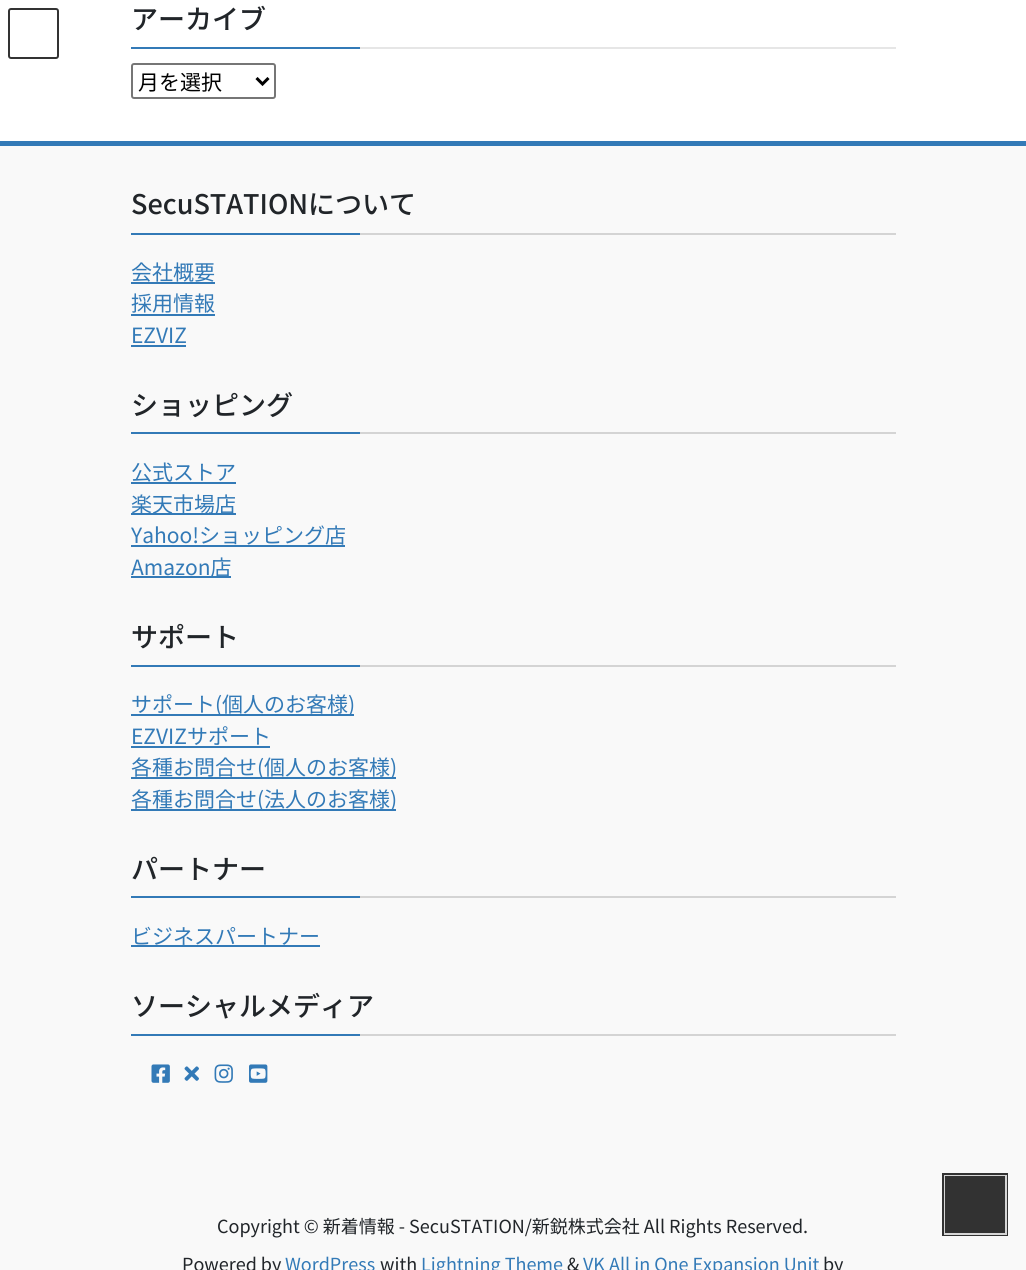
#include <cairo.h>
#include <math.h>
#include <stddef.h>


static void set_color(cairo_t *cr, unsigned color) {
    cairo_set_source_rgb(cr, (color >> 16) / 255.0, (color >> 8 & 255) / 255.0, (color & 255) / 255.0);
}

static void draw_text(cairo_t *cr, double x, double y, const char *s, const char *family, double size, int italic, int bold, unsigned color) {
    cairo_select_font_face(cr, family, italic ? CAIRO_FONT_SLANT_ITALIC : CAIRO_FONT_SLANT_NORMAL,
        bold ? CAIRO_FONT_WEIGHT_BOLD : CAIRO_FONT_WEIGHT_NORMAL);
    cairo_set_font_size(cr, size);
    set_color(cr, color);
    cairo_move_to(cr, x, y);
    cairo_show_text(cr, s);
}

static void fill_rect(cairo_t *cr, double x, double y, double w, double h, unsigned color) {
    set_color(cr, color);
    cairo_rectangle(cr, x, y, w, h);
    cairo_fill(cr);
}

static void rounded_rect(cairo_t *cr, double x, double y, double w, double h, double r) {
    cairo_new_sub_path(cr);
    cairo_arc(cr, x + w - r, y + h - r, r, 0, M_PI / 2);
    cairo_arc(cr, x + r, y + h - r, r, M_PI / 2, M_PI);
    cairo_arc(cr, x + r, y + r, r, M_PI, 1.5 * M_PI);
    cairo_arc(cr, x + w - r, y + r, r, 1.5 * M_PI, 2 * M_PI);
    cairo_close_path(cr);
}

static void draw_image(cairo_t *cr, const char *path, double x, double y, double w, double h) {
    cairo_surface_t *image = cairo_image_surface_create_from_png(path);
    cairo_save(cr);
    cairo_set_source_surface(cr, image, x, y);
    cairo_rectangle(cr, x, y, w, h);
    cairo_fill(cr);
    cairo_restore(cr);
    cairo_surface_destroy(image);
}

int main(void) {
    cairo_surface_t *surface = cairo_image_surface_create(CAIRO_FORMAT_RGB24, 1026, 1270);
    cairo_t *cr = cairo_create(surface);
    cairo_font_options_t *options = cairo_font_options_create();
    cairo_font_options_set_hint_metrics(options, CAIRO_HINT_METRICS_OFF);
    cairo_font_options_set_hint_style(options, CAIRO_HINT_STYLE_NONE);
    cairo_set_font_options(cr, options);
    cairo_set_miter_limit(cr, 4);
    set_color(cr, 0xFFFFFF);
    cairo_paint(cr);
    rounded_rect(cr, 9, 9, 49, 49, 2);
    set_color(cr, 0x333333);
    cairo_stroke(cr);
    fill_rect(cr, 360, 47, 536, 2, 0xE6E6E6);
    draw_text(cr, 131, 29, "アーカイブ", "Noto Sans JP Medium", 27, 0, 0, 0x212529);
    fill_rect(cr, 131, 47, 229, 2, 0x337AB7);
    rounded_rect(cr, 132, 64, 143, 34, 2);
    set_color(cr, 0x767676);
    cairo_stroke(cr);
    cairo_new_path(cr);
    cairo_move_to(cr, 256.5, 78);
    cairo_line_to(cr, 262.5, 84);
    cairo_line_to(cr, 268.5, 78);
    set_color(cr, 0x000000);
    cairo_set_line_width(cr, 3);
    cairo_stroke(cr);
    draw_text(cr, 138, 90, "月を選択", "Noto Sans JP", 21, 0, 0, 0x000000);
    fill_rect(cr, 0, 146, 1026, 1124, 0xF9F9F9);
    fill_rect(cr, 0, 141, 1026, 5, 0x337AB7);
    fill_rect(cr, 360, 233, 536, 2, 0xD4D4D4);
    draw_text(cr, 131, 214, "SecuSTATIONについて", "Noto Sans JP Medium", 27, 0, 0, 0x212529);
    fill_rect(cr, 131, 233, 229, 2, 0x337AB7);
    draw_text(cr, 131, 280, "会社概要", "Noto Sans JP", 21, 0, 0, 0x337AB7);
    fill_rect(cr, 131, 282, 84, 2, 0x337AB7);
    draw_text(cr, 131, 311, "採用情報", "Noto Sans JP", 21, 0, 0, 0x337AB7);
    fill_rect(cr, 131, 314, 84, 2, 0x337AB7);
    draw_text(cr, 131, 343, "EZVIZ", "Noto Sans JP", 21, 0, 0, 0x337AB7);
    fill_rect(cr, 131, 345, 55, 2, 0x337AB7);
    fill_rect(cr, 360, 432, 536, 2, 0xD4D4D4);
    draw_text(cr, 131, 415, "ショッピング", "Noto Sans JP Medium", 27, 0, 0, 0x212529);
    fill_rect(cr, 131, 432, 229, 2, 0x337AB7);
    draw_text(cr, 131, 480, "公式ストア", "Noto Sans JP", 21, 0, 0, 0x337AB7);
    fill_rect(cr, 131, 482, 105, 2, 0x337AB7);
    fill_rect(cr, 131, 513, 105, 2, 0x337AB7);
    draw_text(cr, 131, 512, "楽天市場店", "Noto Sans JP", 21, 0, 0, 0x337AB7);
    draw_text(cr, 131, 543, "Yahoo!ショッピング店", "Noto Sans JP", 21, 0, 0, 0x337AB7);
    fill_rect(cr, 131, 545, 214, 2, 0x337AB7);
    fill_rect(cr, 131, 576, 100, 2, 0x337AB7);
    draw_text(cr, 131, 575, "Amazon店", "Noto Sans JP", 21, 0, 0, 0x337AB7);
    fill_rect(cr, 360, 665, 536, 2, 0xD4D4D4);
    draw_text(cr, 131, 647, "サポート", "Noto Sans JP Medium", 27, 0, 0, 0x212529);
    fill_rect(cr, 131, 665, 229, 2, 0x337AB7);
    fill_rect(cr, 131, 714, 223, 2, 0x337AB7);
    draw_text(cr, 131, 712, "サポート(個人のお客様)", "Noto Sans JP", 21, 0, 0, 0x337AB7);
    draw_text(cr, 131, 744, "EZVIZサポート", "Noto Sans JP", 21, 0, 0, 0x337AB7);
    fill_rect(cr, 131, 746, 139, 2, 0x337AB7);
    fill_rect(cr, 131, 777, 265, 2, 0x337AB7);
    draw_text(cr, 131, 775, "各種お問合せ(個人のお客様)", "Noto Sans JP", 21, 0, 0, 0x337AB7);
    fill_rect(cr, 131, 809, 265, 2, 0x337AB7);
    draw_text(cr, 131, 807, "各種お問合せ(法人のお客様)", "Noto Sans JP", 21, 0, 0, 0x337AB7);
    fill_rect(cr, 360, 896, 536, 2, 0xD4D4D4);
    draw_text(cr, 131, 879, "パートナー", "Noto Sans JP Medium", 27, 0, 0, 0x212529);
    fill_rect(cr, 131, 896, 229, 2, 0x337AB7);
    draw_text(cr, 131, 944, "ビジネスパートナー", "Noto Sans JP", 21, 0, 0, 0x337AB7);
    fill_rect(cr, 131, 945, 189, 2, 0x337AB7);
    fill_rect(cr, 360, 1034, 536, 2, 0xD4D4D4);
    draw_text(cr, 131, 1016, "ソーシャルメディア", "Noto Sans JP Medium", 27, 0, 0, 0x212529);
    fill_rect(cr, 131, 1034, 229, 2, 0x337AB7);
    draw_image(cr, "assets/img1.png", 151, 1064, 19, 19);
    draw_image(cr, "assets/img2.png", 184, 1066, 15, 15);
    draw_image(cr, "assets/img3.png", 214, 1064, 19, 19);
    draw_image(cr, "assets/img4.png", 249, 1064, 19, 19);
    draw_text(cr, 217, 1233, "Copyright © 新着情報 - SecuSTATION/新鋭株式会社 All Rights Reserved.", "Noto Sans JP", 18, 0, 0, 0x212529);
    draw_text(cr, 182, 1271, "Powered by", "Noto Sans JP", 18, 0, 0, 0x212529);
    draw_text(cr, 285, 1271, "WordPress", "Noto Sans JP", 18, 0, 0, 0x337AB7);
    draw_text(cr, 380, 1271, "with", "Noto Sans JP", 18, 0, 0, 0x212529);
    draw_text(cr, 421, 1271, "Lightning Theme", "Noto Sans JP", 18, 0, 0, 0x337AB7);
    draw_text(cr, 567, 1271, "&", "Noto Sans JP", 18, 0, 0, 0x212529);
    draw_text(cr, 583, 1271, "VK All in One Expansion Unit", "Noto Sans JP", 18, 0, 0, 0x337AB7);
    draw_text(cr, 823, 1271, "by", "Noto Sans JP", 18, 0, 0, 0x212529);
    cairo_rectangle(cr, 943.5, 1174.5, 63, 60);
    set_color(cr, 0x323232);
    cairo_stroke(cr);
    cairo_rectangle(cr, 945, 1176, 61, 58);
    cairo_set_source_rgba(cr, 1, 1, 1, 0.8);
    cairo_set_line_width(cr, 2);
    cairo_stroke(cr);
    cairo_set_source_rgba(cr, 0, 0, 0, 0.8);
    cairo_rectangle(cr, 945, 1176, 60, 57);
    cairo_fill(cr);
    cairo_surface_write_to_png(surface, "output.png");
    cairo_font_options_destroy(options);
    cairo_destroy(cr);
    cairo_surface_destroy(surface);
    return 0;
}
